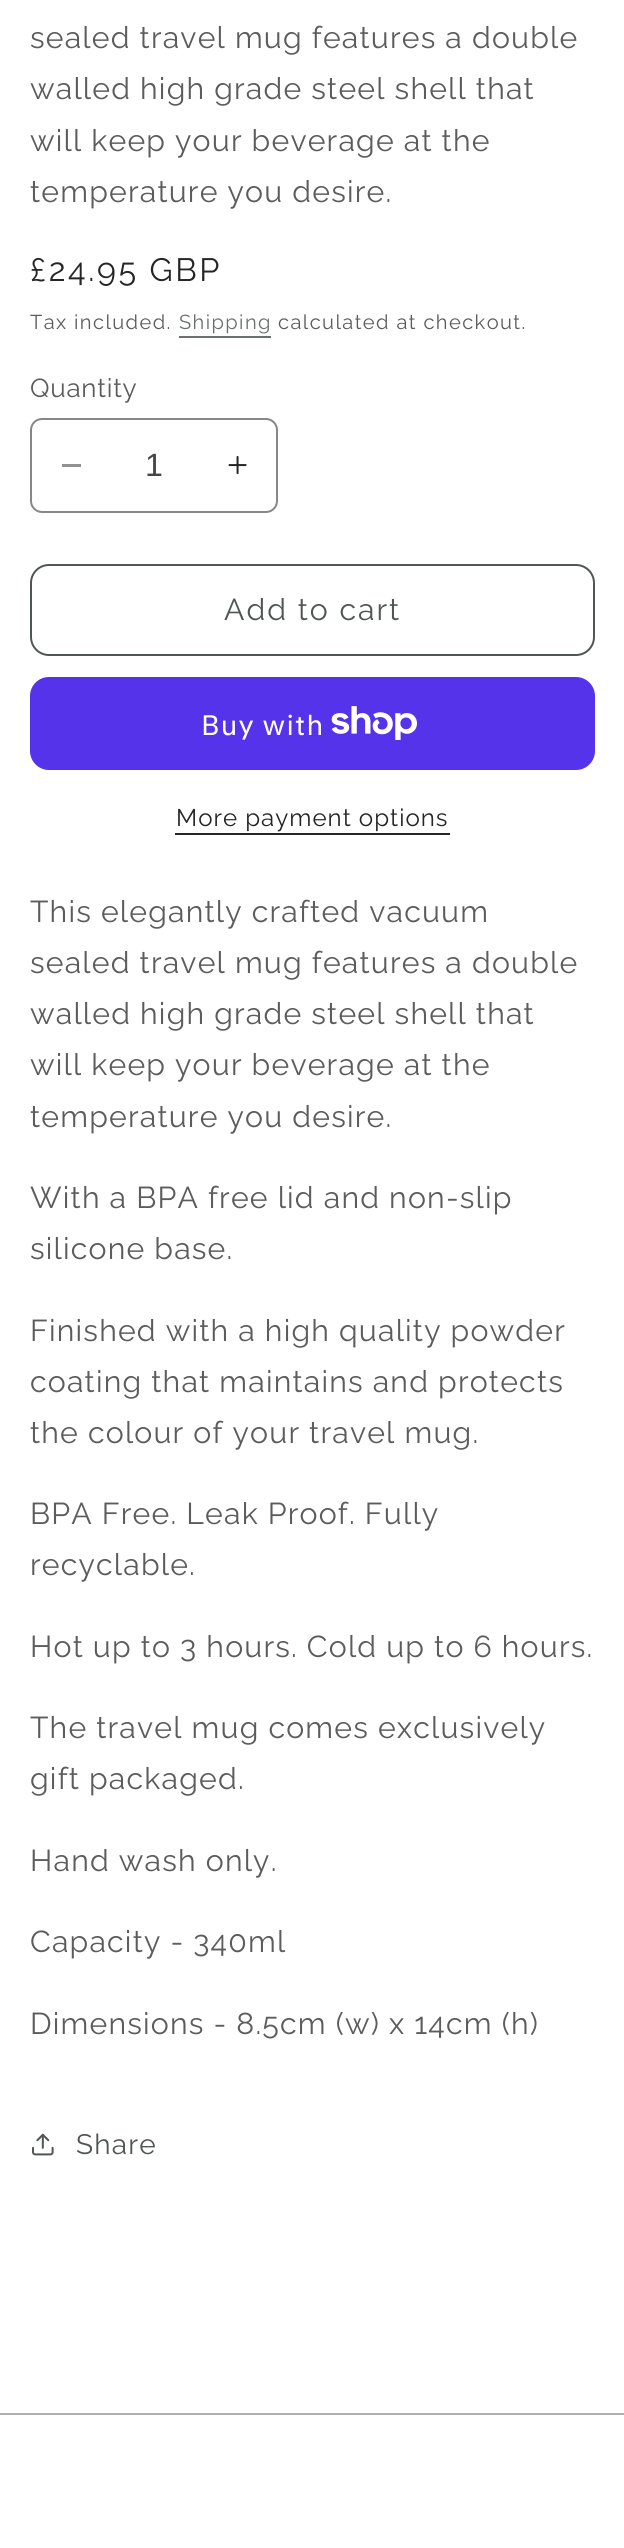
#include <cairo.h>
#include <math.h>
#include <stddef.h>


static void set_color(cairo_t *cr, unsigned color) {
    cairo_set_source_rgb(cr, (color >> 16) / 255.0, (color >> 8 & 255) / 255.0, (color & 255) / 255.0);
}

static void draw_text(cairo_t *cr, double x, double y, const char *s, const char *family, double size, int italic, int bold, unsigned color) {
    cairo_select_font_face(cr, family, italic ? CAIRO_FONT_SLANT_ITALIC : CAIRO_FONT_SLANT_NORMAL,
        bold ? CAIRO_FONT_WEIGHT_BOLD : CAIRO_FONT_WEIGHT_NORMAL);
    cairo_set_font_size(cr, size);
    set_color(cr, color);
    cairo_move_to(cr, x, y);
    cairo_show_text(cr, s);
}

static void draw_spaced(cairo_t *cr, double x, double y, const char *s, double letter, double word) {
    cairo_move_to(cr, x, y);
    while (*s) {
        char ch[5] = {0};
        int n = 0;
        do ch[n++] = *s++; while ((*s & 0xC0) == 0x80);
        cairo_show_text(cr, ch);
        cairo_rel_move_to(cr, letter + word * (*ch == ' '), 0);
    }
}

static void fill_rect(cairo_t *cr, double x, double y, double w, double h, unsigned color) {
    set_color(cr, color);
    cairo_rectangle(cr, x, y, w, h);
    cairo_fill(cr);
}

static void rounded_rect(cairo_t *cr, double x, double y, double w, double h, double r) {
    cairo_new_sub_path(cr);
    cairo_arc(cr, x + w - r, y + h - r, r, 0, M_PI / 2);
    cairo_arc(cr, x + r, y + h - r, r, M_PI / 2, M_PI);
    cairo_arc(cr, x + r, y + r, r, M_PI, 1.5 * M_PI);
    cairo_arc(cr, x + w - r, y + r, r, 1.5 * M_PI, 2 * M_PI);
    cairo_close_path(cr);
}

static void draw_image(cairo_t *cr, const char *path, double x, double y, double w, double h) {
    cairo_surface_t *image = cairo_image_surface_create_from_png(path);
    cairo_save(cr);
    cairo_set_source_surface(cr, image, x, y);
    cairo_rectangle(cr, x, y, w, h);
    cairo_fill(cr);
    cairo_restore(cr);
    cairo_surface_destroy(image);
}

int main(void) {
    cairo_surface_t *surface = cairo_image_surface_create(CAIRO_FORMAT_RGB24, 624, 2548);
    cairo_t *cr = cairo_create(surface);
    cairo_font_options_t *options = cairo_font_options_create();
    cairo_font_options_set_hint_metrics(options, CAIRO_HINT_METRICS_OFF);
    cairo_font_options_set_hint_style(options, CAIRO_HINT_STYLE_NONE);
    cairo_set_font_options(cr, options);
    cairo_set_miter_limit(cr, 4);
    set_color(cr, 0xFFFFFF);
    cairo_paint(cr);
    cairo_select_font_face(cr, "Raleway", CAIRO_FONT_SLANT_NORMAL, CAIRO_FONT_WEIGHT_NORMAL);
    cairo_set_font_size(cr, 30.2);
    set_color(cr, 0x5C5C5C);
    draw_spaced(cr, 30, 48, "sealed travel mug features a double", 1.2, 0);
    draw_spaced(cr, 30, 99, "walled high grade steel shell that", 1.2, 0);
    draw_spaced(cr, 30, 151, "will keep your beverage at the", 1.2, 0);
    draw_spaced(cr, 30, 202, "temperature you desire.", 1.2, 0);
    cairo_set_font_size(cr, 32.25);
    set_color(cr, 0x252525);
    draw_spaced(cr, 30, 281, "£24.95 GBP", 2.6, 0);
    cairo_set_font_size(cr, 20.1);
    set_color(cr, 0x5C5C5C);
    draw_spaced(cr, 30, 329, "Tax included.", 1.4, 0);
    set_color(cr, 0x6A6F6F);
    draw_spaced(cr, 179, 329, "Shipping", 1.4, 0);
    fill_rect(cr, 179, 336, 92, 2, 0x6A6F6F);
    set_color(cr, 0x5C5C5C);
    draw_spaced(cr, 278, 329, "calculated at checkout.", 1.4, 0);
    cairo_set_font_size(cr, 26);
    draw_spaced(cr, 30, 397, "Quantity", 0.75, 0);
    fill_rect(cr, 62, 464, 19, 3, 0x929292);
    draw_image(cr, "assets/img1.png", 228, 456, 19, 19);
    rounded_rect(cr, 31, 419, 246, 93, 11);
    set_color(cr, 0x878787);
    cairo_stroke(cr);
    draw_text(cr, 145, 476, "1", "Liberation Sans", 32.25, 0, 0, 0x464646);
    rounded_rect(cr, 31, 565, 563, 90, 18);
    set_color(cr, 0x505655);
    cairo_stroke(cr);
    cairo_select_font_face(cr, "Raleway", CAIRO_FONT_SLANT_NORMAL, CAIRO_FONT_WEIGHT_NORMAL);
    cairo_set_font_size(cr, 30.2);
    draw_spaced(cr, 224, 620, "Add to cart", 2, 0);
    set_color(cr, 0x5433EB);
    rounded_rect(cr, 30, 677, 565, 93, 19);
    cairo_fill(cr);
    cairo_select_font_face(cr, "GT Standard", CAIRO_FONT_SLANT_NORMAL, CAIRO_FONT_WEIGHT_NORMAL);
    cairo_set_font_size(cr, 28);
    set_color(cr, 0xFFFFFF);
    draw_spaced(cr, 201, 735, "Buy with", 1.2, 0);
    draw_image(cr, "assets/img2.png", 331, 706, 86, 34);
    cairo_select_font_face(cr, "Raleway", CAIRO_FONT_SLANT_NORMAL, CAIRO_FONT_WEIGHT_NORMAL);
    cairo_set_font_size(cr, 24.1);
    set_color(cr, 0x252525);
    draw_spaced(cr, 176, 826, "More payment options", 1, 0);
    fill_rect(cr, 175, 833, 275, 2, 0x252525);
    cairo_set_font_size(cr, 30.2);
    set_color(cr, 0x5C5C5C);
    draw_spaced(cr, 30, 922, "This elegantly crafted vacuum", 1.2, 0);
    draw_spaced(cr, 30, 973, "sealed travel mug features a double", 1.2, 0);
    draw_spaced(cr, 30, 1024, "walled high grade steel shell that", 1.2, 0);
    draw_spaced(cr, 30, 1075, "will keep your beverage at the", 1.2, 0);
    draw_spaced(cr, 30, 1127, "temperature you desire.", 1.2, 0);
    draw_spaced(cr, 30, 1208, "With a BPA free lid and non-slip", 1.2, 0);
    draw_spaced(cr, 30, 1259, "silicone base.", 1.2, 0);
    draw_spaced(cr, 30, 1341, "Finished with a high quality powder", 1.2, 0);
    draw_spaced(cr, 30, 1392, "coating that maintains and protects", 1.2, 0);
    draw_spaced(cr, 30, 1443, "the colour of your travel mug.", 1.2, 0);
    draw_spaced(cr, 30, 1524, "BPA Free. Leak Proof. Fully", 1.2, 0);
    draw_spaced(cr, 30, 1575, "recyclable.", 1.2, 0);
    draw_spaced(cr, 30, 1657, "Hot up to 3 hours. Cold up to 6 hours.", 1.2, 0);
    draw_spaced(cr, 30, 1738, "The travel mug comes exclusively", 1.2, 0);
    draw_spaced(cr, 30, 1789, "gift packaged.", 1.2, 0);
    draw_spaced(cr, 30, 1871, "Hand wash only.", 1.2, 0);
    draw_spaced(cr, 30, 1952, "Capacity - 340ml", 1.2, 0);
    draw_spaced(cr, 30, 2034, "Dimensions - 8.5cm (w) x 14cm (h)", 1.2, 0);
    draw_image(cr, "assets/img3.png", 32, 2133, 22, 23);
    cairo_set_font_size(cr, 28);
    set_color(cr, 0x505655);
    draw_spaced(cr, 76, 2154, "Share", 1.2, 0);
    fill_rect(cr, 0, 2413, 624, 2, 0xAFAFAF);
    cairo_surface_write_to_png(surface, "output.png");
    cairo_font_options_destroy(options);
    cairo_destroy(cr);
    cairo_surface_destroy(surface);
    return 0;
}
